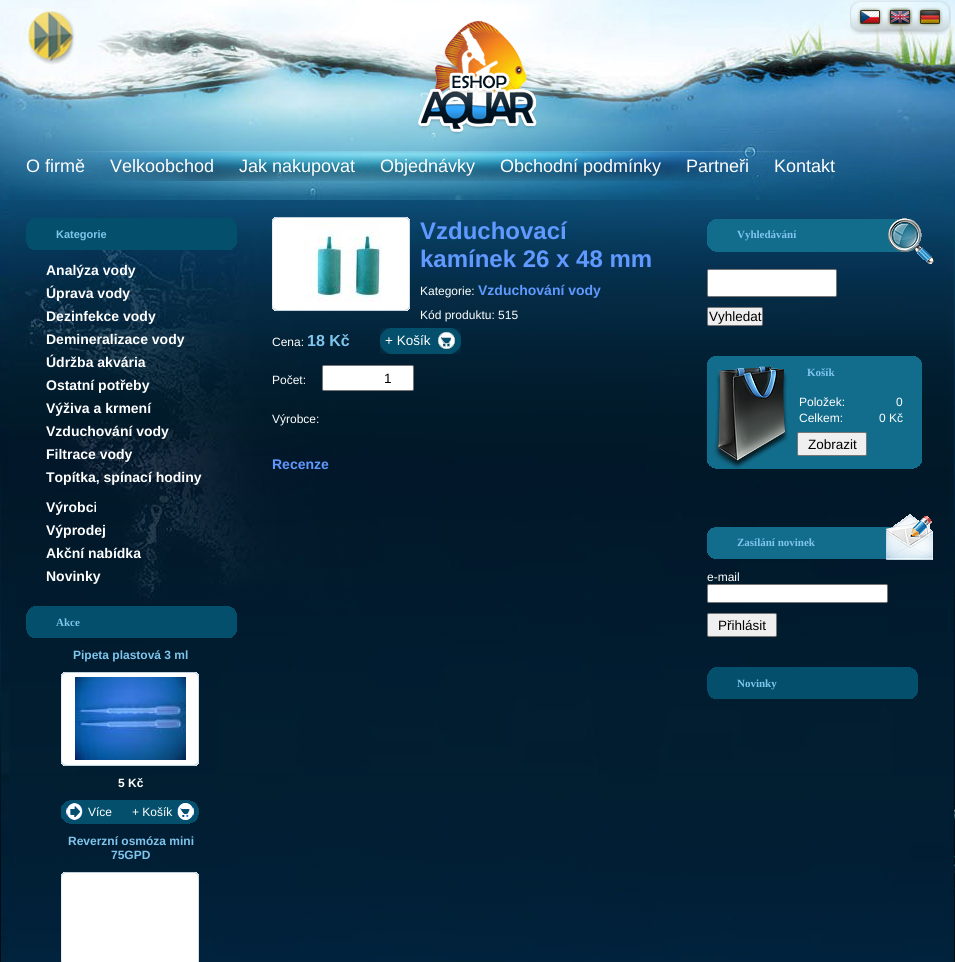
#include <cairo.h>
#include <math.h>
#include <stddef.h>


static void set_color(cairo_t *cr, unsigned color) {
    cairo_set_source_rgb(cr, (color >> 16) / 255.0, (color >> 8 & 255) / 255.0, (color & 255) / 255.0);
}

static void draw_text(cairo_t *cr, double x, double y, const char *s, const char *family, double size, int italic, int bold, unsigned color) {
    cairo_select_font_face(cr, family, italic ? CAIRO_FONT_SLANT_ITALIC : CAIRO_FONT_SLANT_NORMAL,
        bold ? CAIRO_FONT_WEIGHT_BOLD : CAIRO_FONT_WEIGHT_NORMAL);
    cairo_set_font_size(cr, size);
    set_color(cr, color);
    cairo_move_to(cr, x, y);
    cairo_show_text(cr, s);
}

static void rounded_rect(cairo_t *cr, double x, double y, double w, double h, double r) {
    cairo_new_sub_path(cr);
    cairo_arc(cr, x + w - r, y + h - r, r, 0, M_PI / 2);
    cairo_arc(cr, x + r, y + h - r, r, M_PI / 2, M_PI);
    cairo_arc(cr, x + r, y + r, r, M_PI, 1.5 * M_PI);
    cairo_arc(cr, x + w - r, y + r, r, 1.5 * M_PI, 2 * M_PI);
    cairo_close_path(cr);
}

static void draw_image(cairo_t *cr, const char *path, double x, double y, double w, double h) {
    cairo_surface_t *image = cairo_image_surface_create_from_png(path);
    cairo_save(cr);
    cairo_set_source_surface(cr, image, x, y);
    cairo_rectangle(cr, x, y, w, h);
    cairo_fill(cr);
    cairo_restore(cr);
    cairo_surface_destroy(image);
}

int main(void) {
    cairo_surface_t *surface = cairo_image_surface_create(CAIRO_FORMAT_RGB24, 955, 962);
    cairo_t *cr = cairo_create(surface);
    cairo_font_options_t *options = cairo_font_options_create();
    cairo_font_options_set_hint_metrics(options, CAIRO_HINT_METRICS_OFF);
    cairo_font_options_set_hint_style(options, CAIRO_HINT_STYLE_NONE);
    cairo_set_font_options(cr, options);
    cairo_set_miter_limit(cr, 4);
    set_color(cr, 0xFFFFFF);
    cairo_paint(cr);
    draw_image(cr, "assets/img1.png", 0, 0, 955, 962);
    draw_image(cr, "assets/img2.png", 1, 14, 953, 184);
    draw_image(cr, "assets/img3.png", 22, 8, 56, 61);
    draw_image(cr, "assets/img4.png", 416, 19, 123, 118);
    draw_image(cr, "assets/img5.png", 850, 0, 101, 35);
    draw_image(cr, "assets/img6.png", 19, 151, 929, 30);
    draw_text(cr, 26, 172, "O firmě", "Liberation Sans", 18, 0, 0, 0xFFFFFF);
    draw_text(cr, 110, 172, "Velkoobchod", "Liberation Sans", 18, 0, 0, 0xFFFFFF);
    draw_text(cr, 239, 172, "Jak nakupovat", "Liberation Sans", 18, 0, 0, 0xFFFFFF);
    draw_text(cr, 380, 172, "Objednávky", "Liberation Sans", 18, 0, 0, 0xFFFFFF);
    draw_text(cr, 500, 172, "Obchodní podmínky", "Liberation Sans", 18, 0, 0, 0xFFFFFF);
    draw_text(cr, 686, 172, "Partneři", "Liberation Sans", 18, 0, 0, 0xFFFFFF);
    draw_text(cr, 774, 172, "Kontakt", "Liberation Sans", 18, 0, 0, 0xFFFFFF);
    draw_image(cr, "assets/img7.png", 1, 198, 953, 764);
    draw_image(cr, "assets/img8.png", 26, 218, 211, 32);
    draw_text(cr, 56, 238, "Kategorie", "Liberation Sans", 11, 0, 1, 0x7FC5EC);
    draw_text(cr, 46, 275, "Analýza vody", "Liberation Sans", 14, 0, 1, 0xFFFFFF);
    draw_text(cr, 46, 298, "Úprava vody", "Liberation Sans", 14, 0, 1, 0xFFFFFF);
    draw_text(cr, 46, 321, "Dezinfekce vody", "Liberation Sans", 14, 0, 1, 0xFFFFFF);
    draw_text(cr, 46, 344, "Demineralizace vody", "Liberation Sans", 14, 0, 1, 0xFFFFFF);
    draw_text(cr, 46, 367, "Údržba akvária", "Liberation Sans", 14, 0, 1, 0xFFFFFF);
    draw_text(cr, 46, 390, "Ostatní potřeby", "Liberation Sans", 14, 0, 1, 0xFFFFFF);
    draw_text(cr, 46, 413, "Výživa a krmení", "Liberation Sans", 14, 0, 1, 0xFFFFFF);
    draw_text(cr, 46, 436, "Vzduchování vody", "Liberation Sans", 14, 0, 1, 0xFFFFFF);
    draw_text(cr, 46, 459, "Filtrace vody", "Liberation Sans", 14, 0, 1, 0xFFFFFF);
    draw_text(cr, 46, 482, "Topítka, spínací hodiny", "Liberation Sans", 14, 0, 1, 0xFFFFFF);
    draw_text(cr, 46, 512, "Výrobci", "Liberation Sans", 14, 0, 1, 0xFFFFFF);
    draw_text(cr, 46, 535, "Výprodej", "Liberation Sans", 14, 0, 1, 0xFFFFFF);
    draw_text(cr, 46, 558, "Akční nabídka", "Liberation Sans", 14, 0, 1, 0xFFFFFF);
    draw_text(cr, 46, 581, "Novinky", "Liberation Sans", 14, 0, 1, 0xFFFFFF);
    draw_image(cr, "assets/img9.png", 26, 606, 211, 32);
    draw_text(cr, 56, 626, "Akce", "Liberation Serif", 11, 0, 1, 0x7FC5EC);
    draw_text(cr, 73, 659, "Pipeta plastová 3 ml", "Liberation Sans", 12, 0, 1, 0x7FC5EC);
    draw_image(cr, "assets/img10.png", 61, 672, 138, 94);
    draw_image(cr, "assets/img11.png", 75, 677, 111, 83);
    draw_text(cr, 118, 787, "5 Kč", "Liberation Sans", 12, 0, 1, 0xFFFFFF);
    draw_image(cr, "assets/img12.png", 61, 800, 138, 24);
    draw_text(cr, 88, 816, "Více", "Liberation Sans", 12, 0, 0, 0xFFFFFF);
    draw_text(cr, 132, 816, "+ Košík", "Liberation Sans", 12, 0, 0, 0xFFFFFF);
    draw_text(cr, 68, 845, "Reverzní osmóza mini", "Liberation Sans", 12, 0, 1, 0x7FC5EC);
    draw_text(cr, 111, 859, "75GPD", "Liberation Sans", 12, 0, 1, 0x7FC5EC);
    draw_image(cr, "assets/img13.png", 61, 872, 138, 90);
    draw_image(cr, "assets/img14.png", 272, 217, 138, 94);
    draw_image(cr, "assets/img15.png", 303, 222, 79, 80);
    draw_text(cr, 420, 239, "Vzduchovací", "Liberation Sans", 24, 0, 1, 0x6099FF);
    draw_text(cr, 420, 267, "kamínek 26 x 48 mm", "Liberation Sans", 24, 0, 1, 0x6099FF);
    draw_text(cr, 420, 295, "Kategorie:", "Liberation Sans", 12, 0, 0, 0xFFFFFF);
    draw_text(cr, 478, 295, "Vzduchování vody", "Liberation Sans", 14, 0, 1, 0x6099FF);
    draw_text(cr, 420, 319, "Kód produktu: 515", "Liberation Sans", 12, 0, 0, 0xFFFFFF);
    draw_text(cr, 272, 346, "Cena:", "Liberation Sans", 12, 0, 0, 0xFFFFFF);
    draw_text(cr, 307, 346, "18 Kč", "Liberation Sans", 16, 0, 1, 0x7FC5EC);
    draw_image(cr, "assets/img16.png", 380, 328, 81, 26);
    draw_text(cr, 385, 345, "+ Košík", "Liberation Sans", 13.5, 0, 0, 0xFFFFFF);
    draw_text(cr, 272, 384, "Počet:", "Liberation Sans", 12, 0, 0, 0xFFFFFF);
    rounded_rect(cr, 322.5, 365.5, 91, 25, 1.5);
    cairo_fill_preserve(cr);
    set_color(cr, 0x767676);
    cairo_set_line_width(cr, 1);
    cairo_stroke(cr);
    draw_text(cr, 384, 383, "1", "Liberation Sans", 13.5, 0, 0, 0x000000);
    draw_text(cr, 272, 423, "Výrobce:", "Liberation Sans", 12, 0, 0, 0xFFFFFF);
    draw_text(cr, 272, 469, "Recenze", "Liberation Sans", 14, 0, 1, 0x6099FF);
    draw_image(cr, "assets/img17.png", 707, 218, 227, 46);
    draw_text(cr, 737, 238, "Vyhledávání", "Liberation Serif", 11, 0, 1, 0x7FC5EC);
    set_color(cr, 0xFFFFFF);
    rounded_rect(cr, 707.5, 269.5, 129, 27, 1.5);
    cairo_fill_preserve(cr);
    set_color(cr, 0x767676);
    cairo_stroke(cr);
    set_color(cr, 0xEFEFEF);
    rounded_rect(cr, 707.5, 307.5, 55, 18, 1.5);
    cairo_fill_preserve(cr);
    set_color(cr, 0x767676);
    cairo_stroke(cr);
    draw_text(cr, 709, 321, "Vyhledat", "Liberation Sans", 13.5, 0, 0, 0x000000);
    draw_image(cr, "assets/img18.png", 707, 356, 215, 113);
    draw_text(cr, 807, 376, "Košík", "Liberation Serif", 11, 0, 1, 0x7FC5EC);
    draw_text(cr, 799, 406, "Položek:", "Liberation Sans", 12, 0, 0, 0xFFFFFF);
    draw_text(cr, 896, 406, "0", "Liberation Sans", 12, 0, 0, 0xFFFFFF);
    draw_text(cr, 799, 422, "Celkem:", "Liberation Sans", 12, 0, 0, 0xFFFFFF);
    draw_text(cr, 879, 422, "0 Kč", "Liberation Sans", 12, 0, 0, 0xFFFFFF);
    set_color(cr, 0xEFEFEF);
    rounded_rect(cr, 797.5, 432.5, 69, 23, 1.5);
    cairo_fill_preserve(cr);
    set_color(cr, 0x767676);
    cairo_stroke(cr);
    draw_text(cr, 808, 449, "Zobrazit", "Liberation Sans", 13.5, 0, 0, 0x000000);
    draw_image(cr, "assets/img19.png", 707, 514, 226, 46);
    draw_text(cr, 737, 546, "Zasílání novinek", "Liberation Serif", 11, 0, 1, 0x7FC5EC);
    draw_text(cr, 707, 581, "e-mail", "Liberation Sans", 12, 0, 0, 0xFFFFFF);
    rounded_rect(cr, 707.5, 584.5, 180, 18, 1.5);
    cairo_fill_preserve(cr);
    set_color(cr, 0x767676);
    cairo_stroke(cr);
    set_color(cr, 0xEFEFEF);
    rounded_rect(cr, 707.5, 613.5, 69, 23, 1.5);
    cairo_fill_preserve(cr);
    set_color(cr, 0x767676);
    cairo_stroke(cr);
    draw_text(cr, 718, 630, "Přihlásit", "Liberation Sans", 13.5, 0, 0, 0x000000);
    draw_image(cr, "assets/img20.png", 707, 667, 211, 32);
    draw_text(cr, 737, 687, "Novinky", "Liberation Serif", 11, 0, 1, 0x7FC5EC);
    cairo_surface_write_to_png(surface, "output.png");
    cairo_font_options_destroy(options);
    cairo_destroy(cr);
    cairo_surface_destroy(surface);
    return 0;
}
